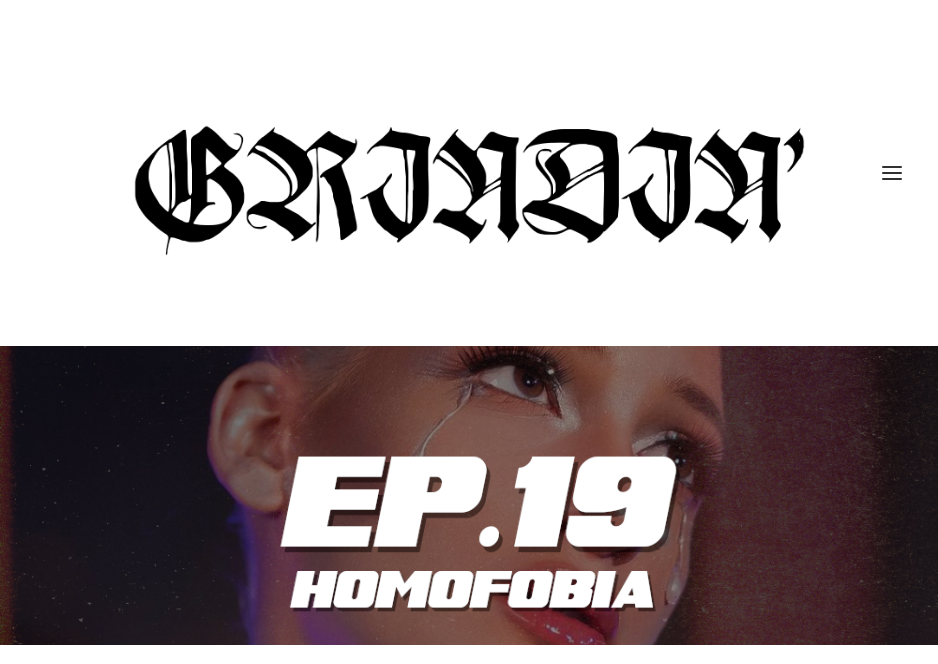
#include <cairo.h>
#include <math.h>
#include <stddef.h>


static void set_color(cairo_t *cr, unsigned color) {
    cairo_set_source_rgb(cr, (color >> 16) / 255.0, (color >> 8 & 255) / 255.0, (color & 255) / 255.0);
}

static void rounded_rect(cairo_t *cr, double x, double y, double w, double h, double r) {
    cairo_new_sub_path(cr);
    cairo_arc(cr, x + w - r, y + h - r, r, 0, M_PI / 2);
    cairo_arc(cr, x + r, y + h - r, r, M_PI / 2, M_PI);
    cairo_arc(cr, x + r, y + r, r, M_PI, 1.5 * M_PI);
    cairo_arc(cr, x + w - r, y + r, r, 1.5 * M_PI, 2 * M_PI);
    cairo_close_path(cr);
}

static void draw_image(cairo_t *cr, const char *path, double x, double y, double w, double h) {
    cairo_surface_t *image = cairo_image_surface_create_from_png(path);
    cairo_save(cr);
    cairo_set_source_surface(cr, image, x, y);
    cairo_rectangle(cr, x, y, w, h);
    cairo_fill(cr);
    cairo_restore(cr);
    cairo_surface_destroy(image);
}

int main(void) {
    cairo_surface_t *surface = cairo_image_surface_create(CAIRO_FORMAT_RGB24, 938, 664);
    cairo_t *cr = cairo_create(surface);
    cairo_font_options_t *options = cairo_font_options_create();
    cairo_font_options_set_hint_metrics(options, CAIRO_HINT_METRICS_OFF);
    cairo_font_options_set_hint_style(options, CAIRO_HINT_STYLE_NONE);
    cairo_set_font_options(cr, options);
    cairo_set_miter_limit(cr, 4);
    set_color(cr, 0xFFFFFF);
    cairo_paint(cr);
    draw_image(cr, "assets/img1.png", 134, 125, 671, 131);
    set_color(cr, 0x303133);
    rounded_rect(cr, 882, 172, 20, 2, 1);
    cairo_fill(cr);
    rounded_rect(cr, 882, 166, 20, 2, 1);
    cairo_fill(cr);
    rounded_rect(cr, 882, 178, 20, 2, 1);
    cairo_fill(cr);
    draw_image(cr, "assets/img2.png", 0, 346, 938, 299);
    cairo_surface_write_to_png(surface, "output.png");
    cairo_font_options_destroy(options);
    cairo_destroy(cr);
    cairo_surface_destroy(surface);
    return 0;
}
